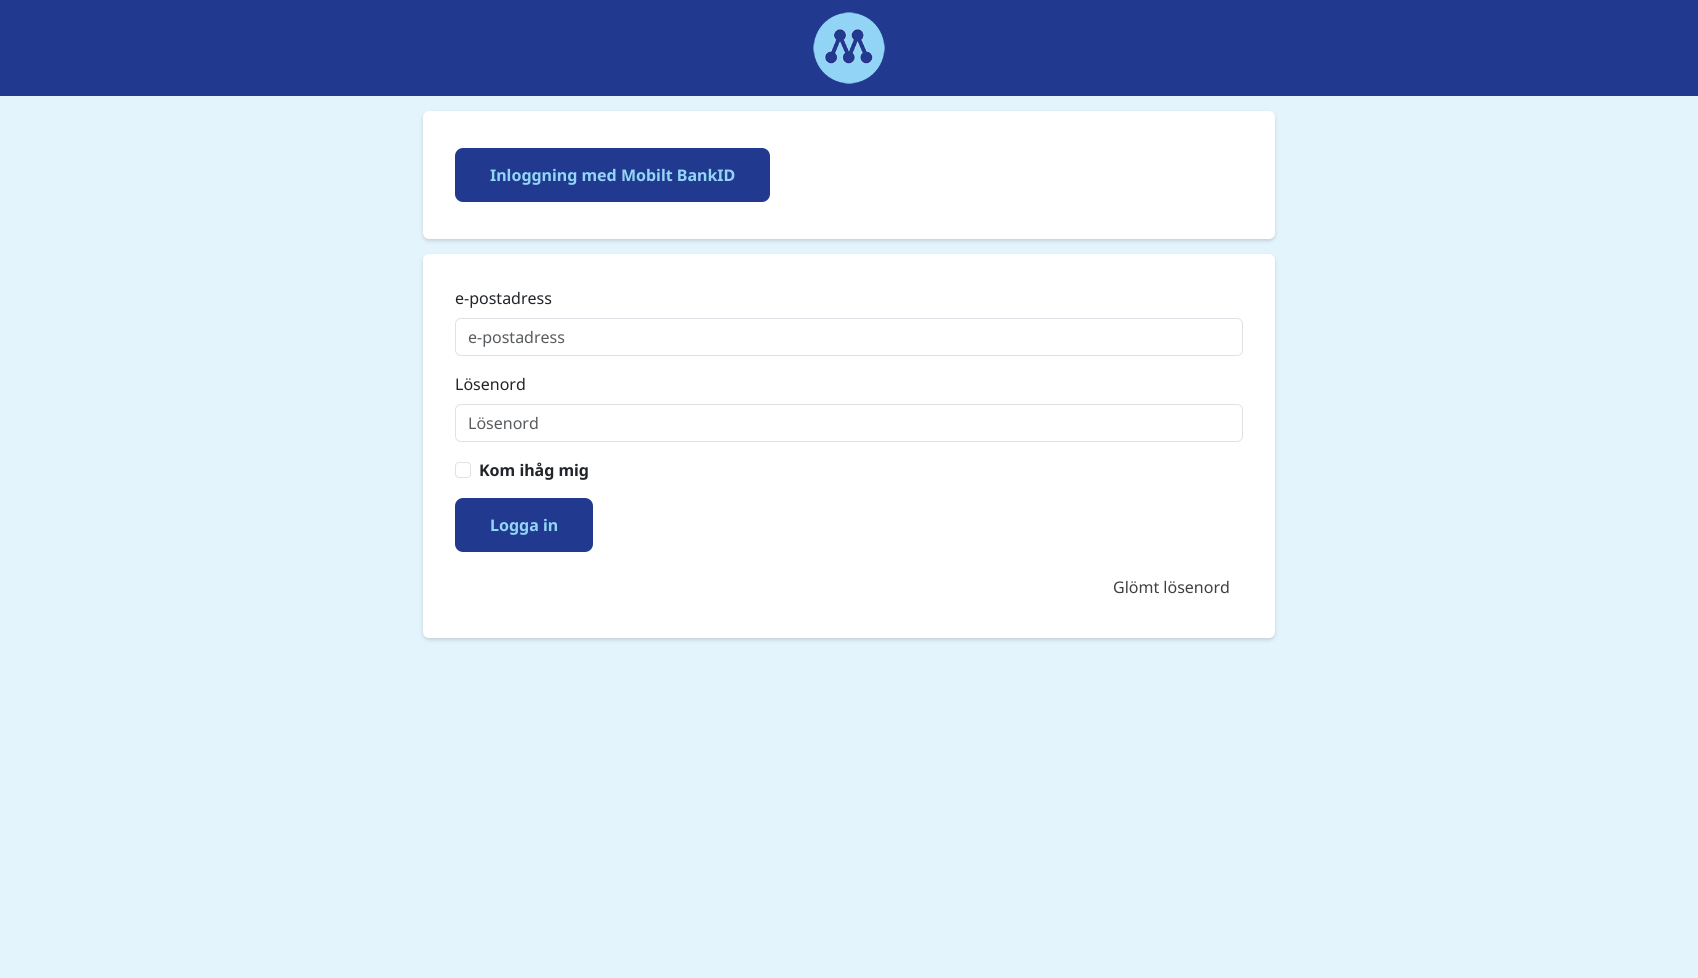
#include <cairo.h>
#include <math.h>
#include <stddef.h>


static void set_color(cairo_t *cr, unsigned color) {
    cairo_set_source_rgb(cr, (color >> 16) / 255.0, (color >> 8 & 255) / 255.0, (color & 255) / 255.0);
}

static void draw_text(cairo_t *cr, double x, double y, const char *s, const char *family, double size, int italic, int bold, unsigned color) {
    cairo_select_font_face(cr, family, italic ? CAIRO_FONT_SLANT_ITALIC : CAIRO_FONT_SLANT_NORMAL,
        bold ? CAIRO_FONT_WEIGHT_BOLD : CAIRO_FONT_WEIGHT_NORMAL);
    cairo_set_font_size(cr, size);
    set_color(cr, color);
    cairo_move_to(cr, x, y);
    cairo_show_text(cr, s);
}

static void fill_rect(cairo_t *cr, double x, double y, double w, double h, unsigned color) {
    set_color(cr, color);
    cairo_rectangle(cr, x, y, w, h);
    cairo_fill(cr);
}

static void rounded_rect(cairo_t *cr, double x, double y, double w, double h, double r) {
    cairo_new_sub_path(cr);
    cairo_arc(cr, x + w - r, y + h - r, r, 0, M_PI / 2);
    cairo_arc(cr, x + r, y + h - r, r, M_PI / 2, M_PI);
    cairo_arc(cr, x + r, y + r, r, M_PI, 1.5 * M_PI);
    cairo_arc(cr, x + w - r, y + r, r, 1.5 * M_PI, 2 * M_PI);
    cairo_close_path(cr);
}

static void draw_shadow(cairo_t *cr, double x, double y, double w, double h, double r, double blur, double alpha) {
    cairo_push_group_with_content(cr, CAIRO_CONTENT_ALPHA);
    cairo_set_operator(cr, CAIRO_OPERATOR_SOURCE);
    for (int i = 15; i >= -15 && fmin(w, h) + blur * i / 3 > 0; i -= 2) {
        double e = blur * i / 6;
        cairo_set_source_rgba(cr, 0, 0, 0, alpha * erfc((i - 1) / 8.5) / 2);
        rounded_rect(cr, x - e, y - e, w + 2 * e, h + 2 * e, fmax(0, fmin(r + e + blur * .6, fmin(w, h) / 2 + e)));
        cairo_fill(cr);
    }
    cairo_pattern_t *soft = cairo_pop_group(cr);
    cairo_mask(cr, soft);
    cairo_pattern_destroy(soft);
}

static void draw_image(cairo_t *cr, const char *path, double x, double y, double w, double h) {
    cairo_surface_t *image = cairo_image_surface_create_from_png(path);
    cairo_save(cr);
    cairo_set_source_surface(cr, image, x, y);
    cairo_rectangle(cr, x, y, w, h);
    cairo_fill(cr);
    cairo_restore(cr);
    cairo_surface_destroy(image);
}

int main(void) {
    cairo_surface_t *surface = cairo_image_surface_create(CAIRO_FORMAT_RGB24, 1698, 978);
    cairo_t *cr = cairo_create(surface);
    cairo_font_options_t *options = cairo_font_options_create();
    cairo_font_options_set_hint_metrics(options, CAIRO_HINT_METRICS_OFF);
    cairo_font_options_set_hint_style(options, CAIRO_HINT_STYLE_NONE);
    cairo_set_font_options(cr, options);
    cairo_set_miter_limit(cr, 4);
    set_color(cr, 0xE4F4FD);
    cairo_paint(cr);
    fill_rect(cr, 0, 0, 1698, 96, 0x213A8F);
    draw_image(cr, "assets/img1.png", 813, 12, 72, 72);
    set_color(cr, 0x000000);
    draw_shadow(cr, 423, 113, 852, 128, 6, 2, 0.15);
    set_color(cr, 0xFFFFFF);
    rounded_rect(cr, 423, 111, 852, 128, 6);
    cairo_fill(cr);
    set_color(cr, 0x213A8F);
    rounded_rect(cr, 455, 148, 315, 54, 8);
    cairo_fill(cr);
    draw_text(cr, 490, 181, "Inloggning med Mobilt BankID", "Noto Sans", 16, 0, 1, 0x93D5F6);
    set_color(cr, 0x000000);
    draw_shadow(cr, 423, 256, 852, 384, 6, 2, 0.15);
    set_color(cr, 0xFFFFFF);
    rounded_rect(cr, 423, 254, 852, 384, 6);
    cairo_fill(cr);
    draw_text(cr, 455, 304, "e-postadress", "Noto Sans", 16, 0, 0, 0x212529);
    rounded_rect(cr, 455.5, 318.5, 787, 37, 5.5);
    set_color(cr, 0xDEE2E6);
    cairo_set_line_width(cr, 1);
    cairo_stroke(cr);
    draw_text(cr, 468, 343, "e-postadress", "Noto Sans", 16, 0, 0, 0x595C5F);
    draw_text(cr, 455, 390, "Lösenord", "Noto Sans", 16, 0, 0, 0x212529);
    rounded_rect(cr, 455.5, 404.5, 787, 37, 5.5);
    set_color(cr, 0xDEE2E6);
    cairo_stroke(cr);
    draw_text(cr, 468, 429, "Lösenord", "Noto Sans", 16, 0, 0, 0x595C5F);
    rounded_rect(cr, 455.5, 462.5, 15, 15, 3.5);
    set_color(cr, 0xDEE2E6);
    cairo_stroke(cr);
    draw_text(cr, 479, 476, "Kom ihåg mig", "Noto Sans", 16, 0, 1, 0x212529);
    set_color(cr, 0x213A8F);
    rounded_rect(cr, 455, 498, 138, 54, 8);
    cairo_fill(cr);
    draw_text(cr, 490, 531, "Logga in", "Noto Sans", 16, 0, 1, 0x93D5F6);
    draw_text(cr, 1113, 593, "Glömt lösenord", "Noto Sans", 16, 0, 0, 0x404040);
    cairo_surface_write_to_png(surface, "output.png");
    cairo_font_options_destroy(options);
    cairo_destroy(cr);
    cairo_surface_destroy(surface);
    return 0;
}
